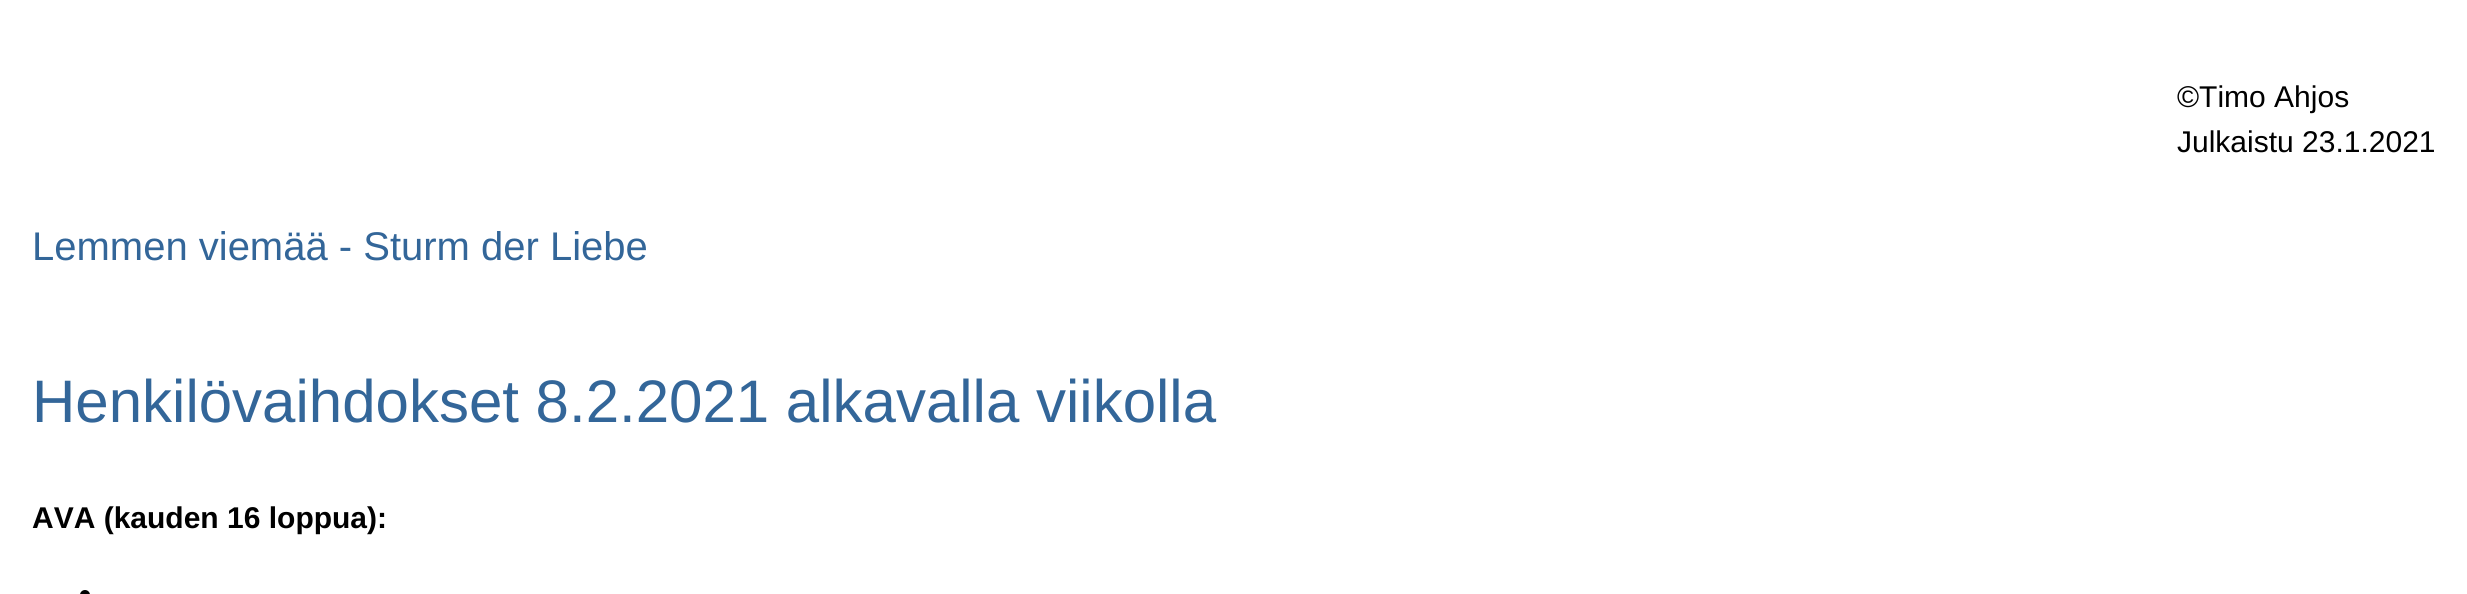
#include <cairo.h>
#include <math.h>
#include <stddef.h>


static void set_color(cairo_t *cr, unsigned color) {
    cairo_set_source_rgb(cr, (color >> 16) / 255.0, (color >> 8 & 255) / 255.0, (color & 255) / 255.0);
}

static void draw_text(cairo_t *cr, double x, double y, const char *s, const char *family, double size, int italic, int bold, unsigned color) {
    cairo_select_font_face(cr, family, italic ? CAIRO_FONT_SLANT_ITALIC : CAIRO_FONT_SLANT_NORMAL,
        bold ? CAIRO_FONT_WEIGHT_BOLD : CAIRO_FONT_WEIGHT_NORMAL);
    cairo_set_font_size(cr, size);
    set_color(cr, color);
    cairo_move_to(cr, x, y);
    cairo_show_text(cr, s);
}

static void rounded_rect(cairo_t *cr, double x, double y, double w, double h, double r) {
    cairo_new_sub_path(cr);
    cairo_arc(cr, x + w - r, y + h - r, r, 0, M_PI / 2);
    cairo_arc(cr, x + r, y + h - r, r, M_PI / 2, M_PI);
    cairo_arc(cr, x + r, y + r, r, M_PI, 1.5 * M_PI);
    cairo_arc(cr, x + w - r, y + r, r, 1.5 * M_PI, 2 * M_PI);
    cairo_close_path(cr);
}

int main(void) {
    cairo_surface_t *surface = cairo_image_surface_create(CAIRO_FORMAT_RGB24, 2467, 594);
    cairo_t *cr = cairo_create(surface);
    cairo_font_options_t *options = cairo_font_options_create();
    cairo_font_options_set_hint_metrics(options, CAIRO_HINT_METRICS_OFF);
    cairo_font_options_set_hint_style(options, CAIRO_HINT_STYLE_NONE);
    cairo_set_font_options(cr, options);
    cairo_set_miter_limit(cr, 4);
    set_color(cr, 0xFFFFFF);
    cairo_paint(cr);
    draw_text(cr, 2177, 107, "©Timo Ahjos", "Liberation Sans", 30, 0, 0, 0x000000);
    draw_text(cr, 2177, 152, "Julkaistu 23.1.2021", "Liberation Sans", 30, 0, 0, 0x000000);
    draw_text(cr, 32, 260, "Lemmen viemää - Sturm der Liebe", "Liberation Sans", 40, 0, 0, 0x336699);
    draw_text(cr, 32, 422, "Henkilövaihdokset 8.2.2021 alkavalla viikolla", "Liberation Sans", 60, 0, 0, 0x336699);
    draw_text(cr, 32, 528, "AVA (kauden 16 loppua):", "Liberation Sans", 30, 0, 1, 0x000000);
    rounded_rect(cr, 80, 590, 10, 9, 5);
    cairo_fill(cr);
    cairo_surface_write_to_png(surface, "output.png");
    cairo_font_options_destroy(options);
    cairo_destroy(cr);
    cairo_surface_destroy(surface);
    return 0;
}
